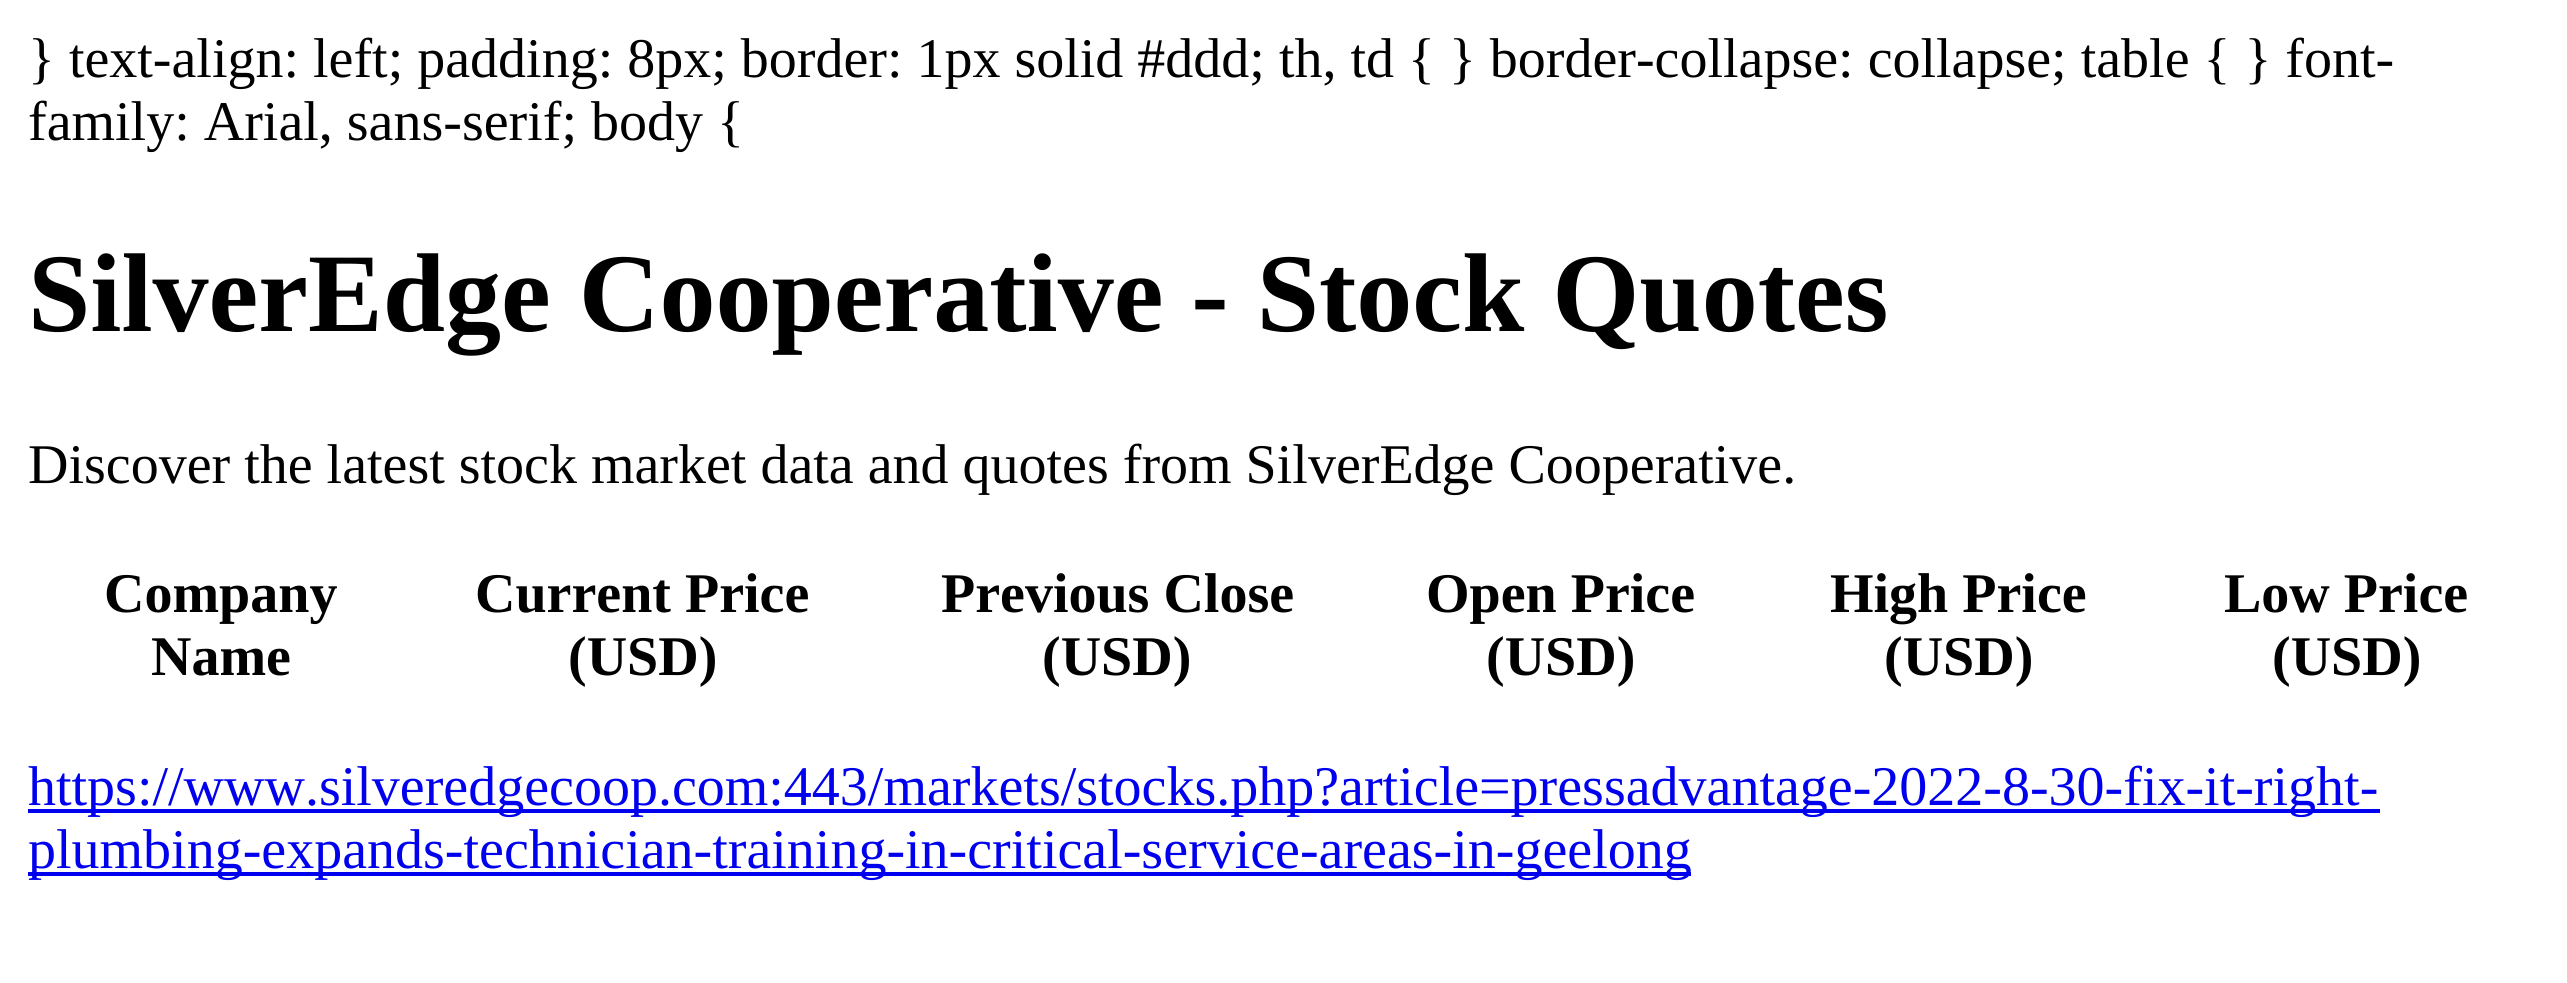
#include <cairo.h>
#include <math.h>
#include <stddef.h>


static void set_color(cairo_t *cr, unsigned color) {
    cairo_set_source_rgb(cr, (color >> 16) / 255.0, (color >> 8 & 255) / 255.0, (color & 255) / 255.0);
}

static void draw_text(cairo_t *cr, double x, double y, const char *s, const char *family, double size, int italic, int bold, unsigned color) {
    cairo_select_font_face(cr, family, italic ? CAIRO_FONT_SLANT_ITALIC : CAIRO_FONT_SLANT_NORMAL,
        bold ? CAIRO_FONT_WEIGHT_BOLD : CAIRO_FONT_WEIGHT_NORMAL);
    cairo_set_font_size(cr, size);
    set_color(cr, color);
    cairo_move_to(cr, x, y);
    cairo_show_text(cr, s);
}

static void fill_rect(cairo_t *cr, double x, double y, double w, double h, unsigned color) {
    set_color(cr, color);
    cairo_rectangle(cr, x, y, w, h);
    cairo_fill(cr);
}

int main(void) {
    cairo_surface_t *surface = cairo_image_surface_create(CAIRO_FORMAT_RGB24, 2567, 983);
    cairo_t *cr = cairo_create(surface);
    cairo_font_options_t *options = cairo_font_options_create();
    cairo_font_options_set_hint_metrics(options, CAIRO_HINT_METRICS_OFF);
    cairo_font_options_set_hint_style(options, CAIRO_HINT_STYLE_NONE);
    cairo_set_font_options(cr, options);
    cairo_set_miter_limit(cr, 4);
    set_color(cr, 0xFFFFFF);
    cairo_paint(cr);
    draw_text(cr, 28, 77, "} text-align: left; padding: 8px; border: 1px solid #ddd; th, td { } border-collapse: collapse; table { } font-", "Liberation Serif", 56, 0, 0, 0x000000);
    draw_text(cr, 28, 140, "family: Arial, sans-serif; body {", "Liberation Serif", 56, 0, 0, 0x000000);
    draw_text(cr, 28, 331, "SilverEdge Cooperative - Stock Quotes", "Liberation Serif", 112, 0, 1, 0x000000);
    draw_text(cr, 28, 483, "Discover the latest stock market data and quotes from SilverEdge Cooperative.", "Liberation Serif", 56, 0, 0, 0x000000);
    draw_text(cr, 104, 612, "Company", "Liberation Serif", 56, 0, 1, 0x000000);
    draw_text(cr, 151, 675, "Name", "Liberation Serif", 56, 0, 1, 0x000000);
    draw_text(cr, 475, 612, "Current Price", "Liberation Serif", 56, 0, 1, 0x000000);
    draw_text(cr, 568, 675, "(USD)", "Liberation Serif", 56, 0, 1, 0x000000);
    draw_text(cr, 941, 612, "Previous Close", "Liberation Serif", 56, 0, 1, 0x000000);
    draw_text(cr, 1042, 675, "(USD)", "Liberation Serif", 56, 0, 1, 0x000000);
    draw_text(cr, 1426, 612, "Open Price", "Liberation Serif", 56, 0, 1, 0x000000);
    draw_text(cr, 1486, 675, "(USD)", "Liberation Serif", 56, 0, 1, 0x000000);
    draw_text(cr, 1830, 612, "High Price", "Liberation Serif", 56, 0, 1, 0x000000);
    draw_text(cr, 1884, 675, "(USD)", "Liberation Serif", 56, 0, 1, 0x000000);
    draw_text(cr, 2224, 612, "Low Price", "Liberation Serif", 56, 0, 1, 0x000000);
    draw_text(cr, 2272, 675, "(USD)", "Liberation Serif", 56, 0, 1, 0x000000);
    fill_rect(cr, 28, 809, 2352, 4, 0x0000EE);
    draw_text(cr, 28, 805, "https://www.silveredgecoop.com:443/markets/stocks.php?article=pressadvantage-2022-8-30-fix-it-right-", "Liberation Serif", 56, 0, 0, 0x0000EE);
    fill_rect(cr, 28, 872, 1663, 4, 0x0000EE);
    draw_text(cr, 28, 868, "plumbing-expands-technician-training-in-critical-service-areas-in-geelong", "Liberation Serif", 56, 0, 0, 0x0000EE);
    cairo_surface_write_to_png(surface, "output.png");
    cairo_font_options_destroy(options);
    cairo_destroy(cr);
    cairo_surface_destroy(surface);
    return 0;
}
